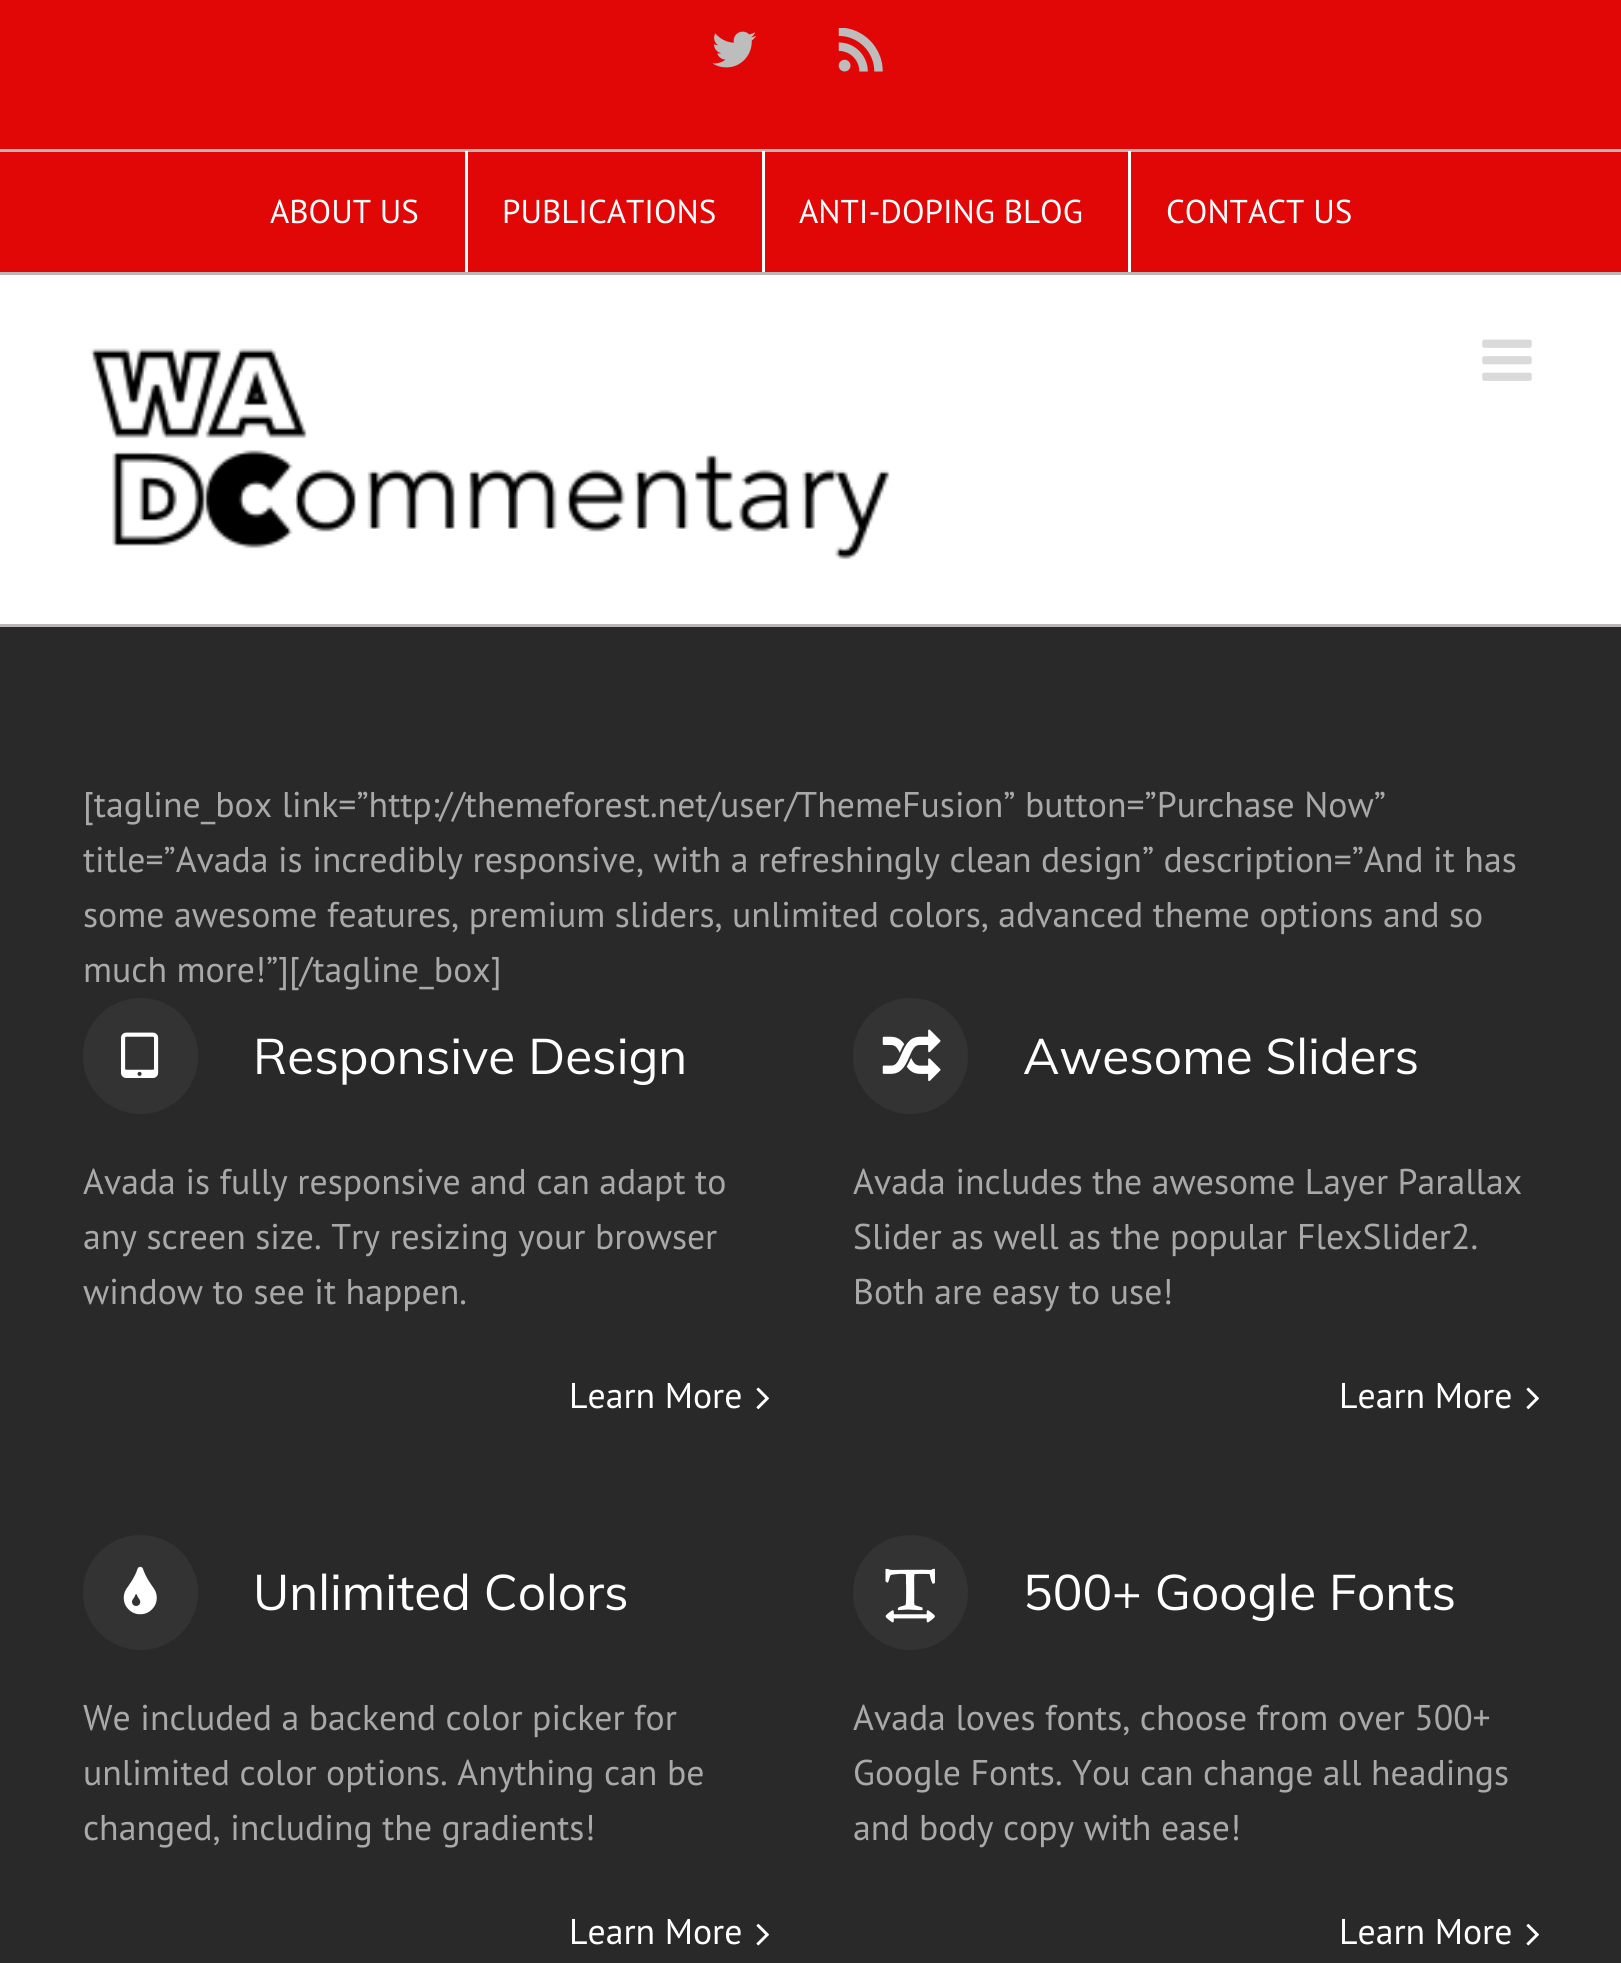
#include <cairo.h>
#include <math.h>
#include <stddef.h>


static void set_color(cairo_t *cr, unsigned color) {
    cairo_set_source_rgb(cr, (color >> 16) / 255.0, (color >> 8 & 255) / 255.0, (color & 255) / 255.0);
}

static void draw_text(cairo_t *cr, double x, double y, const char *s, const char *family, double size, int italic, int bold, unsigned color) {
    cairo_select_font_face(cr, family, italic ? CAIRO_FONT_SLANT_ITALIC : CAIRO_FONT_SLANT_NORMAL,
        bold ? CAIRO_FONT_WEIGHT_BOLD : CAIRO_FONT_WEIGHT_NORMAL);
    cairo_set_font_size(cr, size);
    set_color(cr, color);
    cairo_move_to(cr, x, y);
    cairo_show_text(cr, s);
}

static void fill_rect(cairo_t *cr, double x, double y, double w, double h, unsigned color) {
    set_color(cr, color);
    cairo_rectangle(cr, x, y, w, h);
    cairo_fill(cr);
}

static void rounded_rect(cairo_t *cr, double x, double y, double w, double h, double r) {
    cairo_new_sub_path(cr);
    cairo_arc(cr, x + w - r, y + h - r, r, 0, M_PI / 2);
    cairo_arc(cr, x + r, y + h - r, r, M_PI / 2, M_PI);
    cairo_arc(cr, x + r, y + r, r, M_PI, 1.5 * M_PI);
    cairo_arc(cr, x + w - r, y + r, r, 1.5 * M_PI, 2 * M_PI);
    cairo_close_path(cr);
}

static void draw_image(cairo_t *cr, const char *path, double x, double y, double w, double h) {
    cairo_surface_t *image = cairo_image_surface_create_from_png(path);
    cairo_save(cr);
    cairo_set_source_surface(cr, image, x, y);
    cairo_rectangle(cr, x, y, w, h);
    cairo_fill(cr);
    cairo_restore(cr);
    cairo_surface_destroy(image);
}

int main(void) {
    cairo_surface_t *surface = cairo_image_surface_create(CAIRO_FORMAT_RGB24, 1621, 1963);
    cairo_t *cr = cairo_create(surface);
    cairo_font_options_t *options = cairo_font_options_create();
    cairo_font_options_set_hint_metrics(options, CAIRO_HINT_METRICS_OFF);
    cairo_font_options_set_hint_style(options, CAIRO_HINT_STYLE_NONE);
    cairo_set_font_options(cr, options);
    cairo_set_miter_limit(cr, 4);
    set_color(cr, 0x29292A);
    cairo_paint(cr);
    fill_rect(cr, 0, 0, 1621, 272, 0xE10707);
    fill_rect(cr, 0, 272, 1621, 3, 0xBAB6B6);
    fill_rect(cr, 0, 149, 1621, 3, 0xBAB6B6);
    draw_image(cr, "assets/img1.png", 712, 31, 44, 37);
    draw_image(cr, "assets/img2.png", 838, 28, 45, 44);
    draw_text(cr, 270, 223, "ABOUT US", "PT Sans", 33, 0, 0, 0xFFFFFF);
    fill_rect(cr, 465, 151, 3, 121, 0xFFFFFF);
    draw_text(cr, 502, 223, "PUBLICATIONS", "PT Sans", 33, 0, 0, 0xFFFFFF);
    fill_rect(cr, 762, 151, 3, 121, 0xFFFFFF);
    draw_text(cr, 799, 223, "ANTI-DOPING BLOG", "PT Sans", 33, 0, 0, 0xFFFFFF);
    fill_rect(cr, 1128, 151, 3, 121, 0xFFFFFF);
    draw_text(cr, 1166, 223, "CONTACT US", "PT Sans", 33, 0, 0, 0xFFFFFF);
    fill_rect(cr, 0, 275, 1621, 349, 0xFFFFFF);
    fill_rect(cr, 0, 624, 1621, 3, 0xBAB6B6);
    draw_image(cr, "assets/img3.png", 90, 348, 800, 212);
    draw_image(cr, "assets/img4.png", 1482, 339, 50, 42);
    draw_text(cr, 83, 817, "[tagline_box link=”http://themeforest.net/user/ThemeFusion” button=”Purchase Now”", "PT Sans", 35.75, 0, 0, 0xAAA9A9);
    draw_text(cr, 83, 872, "title=”Avada is incredibly responsive, with a refreshingly clean design” description=”And it has", "PT Sans", 35.75, 0, 0, 0xAAA9A9);
    draw_text(cr, 83, 927, "some awesome features, premium sliders, unlimited colors, advanced theme options and so", "PT Sans", 35.75, 0, 0, 0xAAA9A9);
    draw_text(cr, 83, 982, "much more!”][/tagline_box]", "PT Sans", 35.75, 0, 0, 0xAAA9A9);
    set_color(cr, 0x333333);
    rounded_rect(cr, 83, 998, 115, 116, 57.5);
    cairo_fill(cr);
    draw_image(cr, "assets/img5.png", 121, 1032, 38, 46);
    draw_text(cr, 253, 1074, "Responsive Design", "Muli", 49.5, 0, 0, 0xFFFFFF);
    draw_text(cr, 83, 1194, "Avada is fully responsive and can adapt to", "PT Sans", 35.75, 0, 0, 0xAAA9A9);
    draw_text(cr, 83, 1249, "any screen size. Try resizing your browser", "PT Sans", 35.75, 0, 0, 0xAAA9A9);
    draw_text(cr, 83, 1304, "window to see it happen.", "PT Sans", 35.75, 0, 0, 0xAAA9A9);
    draw_text(cr, 569, 1408, "Learn More", "PT Sans", 35.75, 0, 0, 0xFFFFFF);
    draw_image(cr, "assets/img6.png", 756, 1387, 13, 22);
    set_color(cr, 0x333333);
    rounded_rect(cr, 853, 998, 115, 116, 57.5);
    cairo_fill(cr);
    draw_image(cr, "assets/img7.png", 882, 1029, 59, 53);
    draw_text(cr, 1023, 1074, "Awesome Sliders", "Muli", 49.5, 0, 0, 0xFFFFFF);
    draw_text(cr, 853, 1194, "Avada includes the awesome Layer Parallax", "PT Sans", 35.75, 0, 0, 0xAAA9A9);
    draw_text(cr, 853, 1249, "Slider as well as the popular FlexSlider2.", "PT Sans", 35.75, 0, 0, 0xAAA9A9);
    draw_text(cr, 853, 1304, "Both are easy to use!", "PT Sans", 35.75, 0, 0, 0xAAA9A9);
    draw_text(cr, 1339, 1408, "Learn More", "PT Sans", 35.75, 0, 0, 0xFFFFFF);
    draw_image(cr, "assets/img6.png", 1526, 1387, 13, 22);
    set_color(cr, 0x333333);
    cairo_arc(cr, 140.5, 1592.5, 57.5, 0, 2 * M_PI);
    cairo_fill(cr);
    draw_image(cr, "assets/img8.png", 123, 1566, 34, 49);
    draw_text(cr, 253, 1610, "Unlimited Colors", "Muli", 49.5, 0, 0, 0xFFFFFF);
    draw_text(cr, 83, 1730, "We included a backend color picker for", "PT Sans", 35.75, 0, 0, 0xAAA9A9);
    draw_text(cr, 83, 1785, "unlimited color options. Anything can be", "PT Sans", 35.75, 0, 0, 0xAAA9A9);
    draw_text(cr, 83, 1840, "changed, including the gradients!", "PT Sans", 35.75, 0, 0, 0xAAA9A9);
    draw_text(cr, 569, 1944, "Learn More", "PT Sans", 35.75, 0, 0, 0xFFFFFF);
    draw_image(cr, "assets/img9.png", 756, 1924, 13, 22);
    set_color(cr, 0x333333);
    cairo_arc(cr, 910.5, 1592.5, 57.5, 0, 2 * M_PI);
    cairo_fill(cr);
    draw_image(cr, "assets/img10.png", 885, 1568, 50, 55);
    draw_text(cr, 1023, 1610, "500+ Google Fonts", "Muli", 49.5, 0, 0, 0xFFFFFF);
    draw_text(cr, 853, 1730, "Avada loves fonts, choose from over 500+", "PT Sans", 35.75, 0, 0, 0xAAA9A9);
    draw_text(cr, 853, 1785, "Google Fonts. You can change all headings", "PT Sans", 35.75, 0, 0, 0xAAA9A9);
    draw_text(cr, 853, 1840, "and body copy with ease!", "PT Sans", 35.75, 0, 0, 0xAAA9A9);
    draw_text(cr, 1339, 1944, "Learn More", "PT Sans", 35.75, 0, 0, 0xFFFFFF);
    draw_image(cr, "assets/img9.png", 1526, 1924, 13, 22);
    cairo_surface_write_to_png(surface, "output.png");
    cairo_font_options_destroy(options);
    cairo_destroy(cr);
    cairo_surface_destroy(surface);
    return 0;
}
